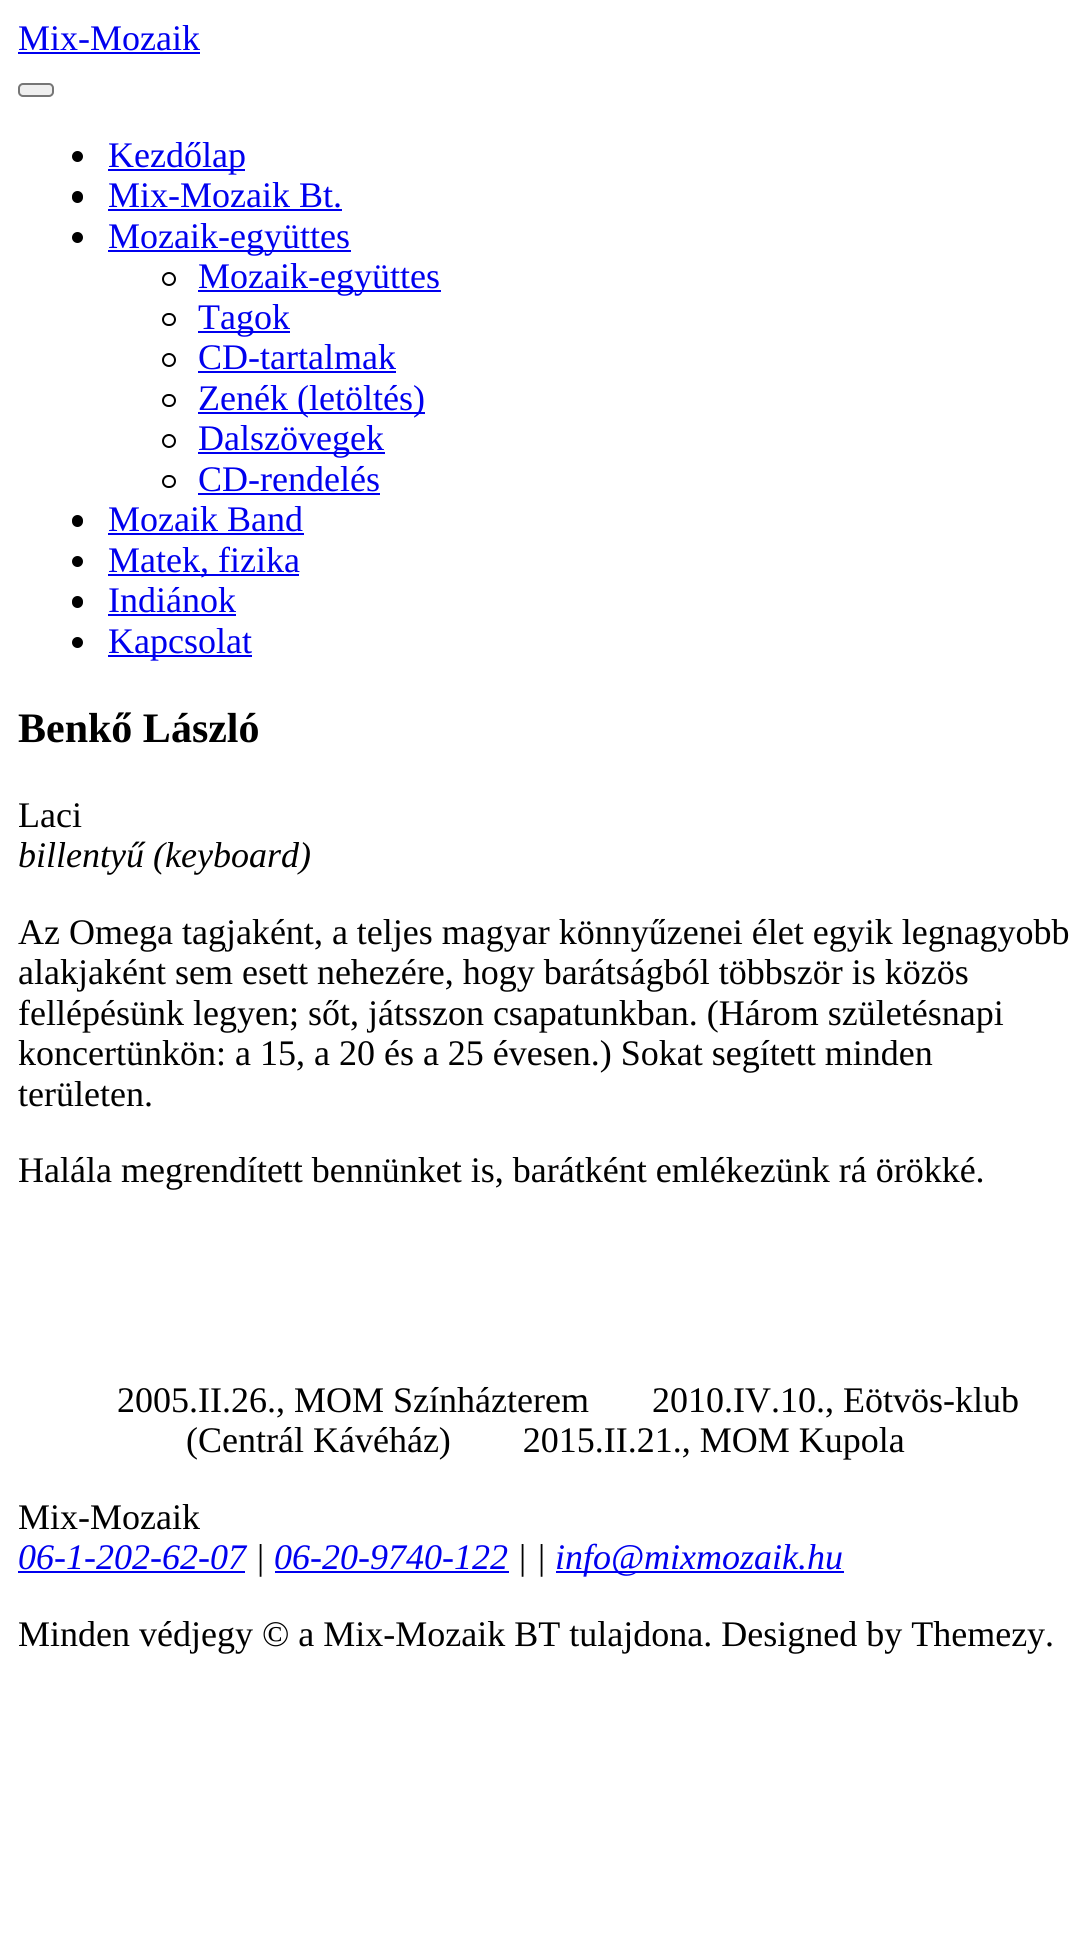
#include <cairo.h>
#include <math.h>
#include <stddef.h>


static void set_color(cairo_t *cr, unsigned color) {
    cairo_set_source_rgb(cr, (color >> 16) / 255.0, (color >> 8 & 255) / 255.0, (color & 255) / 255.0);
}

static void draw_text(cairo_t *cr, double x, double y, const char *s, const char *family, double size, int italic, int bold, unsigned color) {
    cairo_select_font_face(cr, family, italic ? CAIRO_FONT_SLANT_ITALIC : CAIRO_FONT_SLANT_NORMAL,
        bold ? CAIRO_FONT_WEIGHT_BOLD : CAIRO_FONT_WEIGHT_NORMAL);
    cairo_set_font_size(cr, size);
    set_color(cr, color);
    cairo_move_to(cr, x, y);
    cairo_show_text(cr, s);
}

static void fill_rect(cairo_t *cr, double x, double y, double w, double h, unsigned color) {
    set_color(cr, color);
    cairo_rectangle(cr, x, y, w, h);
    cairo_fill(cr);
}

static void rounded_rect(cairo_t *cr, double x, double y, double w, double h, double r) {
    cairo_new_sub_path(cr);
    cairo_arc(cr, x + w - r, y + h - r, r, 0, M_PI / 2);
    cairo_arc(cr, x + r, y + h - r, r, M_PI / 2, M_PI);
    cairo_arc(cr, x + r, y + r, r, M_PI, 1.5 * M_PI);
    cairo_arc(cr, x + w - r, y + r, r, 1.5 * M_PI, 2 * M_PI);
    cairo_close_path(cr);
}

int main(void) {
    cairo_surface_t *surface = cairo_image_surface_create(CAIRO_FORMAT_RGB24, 1090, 1941);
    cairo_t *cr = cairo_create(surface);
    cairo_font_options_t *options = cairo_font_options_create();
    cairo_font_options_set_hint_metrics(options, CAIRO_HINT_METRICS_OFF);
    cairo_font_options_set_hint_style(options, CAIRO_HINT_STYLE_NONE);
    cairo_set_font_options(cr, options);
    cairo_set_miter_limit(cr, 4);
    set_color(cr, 0xFFFFFF);
    cairo_paint(cr);
    draw_text(cr, 18, 50, "Mix-Mozaik", "Liberation Serif", 36, 0, 0, 0x0000EE);
    fill_rect(cr, 18, 52, 182, 2, 0x0000EE);
    set_color(cr, 0xEFEFEF);
    rounded_rect(cr, 19, 84, 34, 12, 4);
    cairo_fill_preserve(cr);
    set_color(cr, 0x767676);
    cairo_stroke(cr);
    set_color(cr, 0x000000);
    cairo_arc(cr, 77.5, 156.5, 5.5, 0, 2 * M_PI);
    cairo_fill(cr);
    fill_rect(cr, 108, 169, 137, 2, 0x0000EE);
    draw_text(cr, 108, 167, "Kezdőlap", "Liberation Serif", 36, 0, 0, 0x0000EE);
    set_color(cr, 0x000000);
    rounded_rect(cr, 72, 191, 11, 12, 5.5);
    cairo_fill(cr);
    draw_text(cr, 108, 207, "Mix-Mozaik Bt.", "Liberation Serif", 36, 0, 0, 0x0000EE);
    fill_rect(cr, 108, 209, 234, 2, 0x0000EE);
    set_color(cr, 0x000000);
    cairo_new_path(cr);
    cairo_arc(cr, 77.5, 237.5, 5.5, 0, 2 * M_PI);
    cairo_fill(cr);
    fill_rect(cr, 108, 250, 243, 2, 0x0000EE);
    draw_text(cr, 108, 248, "Mozaik-együttes", "Liberation Serif", 36, 0, 0, 0x0000EE);
    cairo_new_path(cr);
    cairo_arc(cr, 169, 279, 6, 0, 2 * M_PI);
    set_color(cr, 0x000000);
    cairo_stroke(cr);
    fill_rect(cr, 198, 290, 243, 2, 0x0000EE);
    draw_text(cr, 198, 288, "Mozaik-együttes", "Liberation Serif", 36, 0, 0, 0x0000EE);
    rounded_rect(cr, 163, 314, 12, 11, 5.5);
    set_color(cr, 0x000000);
    cairo_stroke(cr);
    fill_rect(cr, 198, 331, 92, 2, 0x0000EE);
    draw_text(cr, 198, 329, "Tagok", "Liberation Serif", 36, 0, 0, 0x0000EE);
    cairo_new_path(cr);
    cairo_arc(cr, 169, 360, 6, 0, 2 * M_PI);
    set_color(cr, 0x000000);
    cairo_stroke(cr);
    draw_text(cr, 198, 369, "CD-tartalmak", "Liberation Serif", 36, 0, 0, 0x0000EE);
    fill_rect(cr, 198, 371, 198, 2, 0x0000EE);
    rounded_rect(cr, 163, 395, 12, 11, 5.5);
    set_color(cr, 0x000000);
    cairo_stroke(cr);
    fill_rect(cr, 198, 412, 227, 2, 0x0000EE);
    draw_text(cr, 198, 410, "Zenék (letöltés)", "Liberation Serif", 36, 0, 0, 0x0000EE);
    cairo_new_path(cr);
    cairo_arc(cr, 169, 441, 6, 0, 2 * M_PI);
    set_color(cr, 0x000000);
    cairo_stroke(cr);
    fill_rect(cr, 198, 452, 187, 2, 0x0000EE);
    draw_text(cr, 198, 450, "Dalszövegek", "Liberation Serif", 36, 0, 0, 0x0000EE);
    rounded_rect(cr, 163, 476, 12, 11, 5.5);
    set_color(cr, 0x000000);
    cairo_stroke(cr);
    draw_text(cr, 198, 491, "CD-rendelés", "Liberation Serif", 36, 0, 0, 0x0000EE);
    fill_rect(cr, 198, 493, 182, 2, 0x0000EE);
    set_color(cr, 0x000000);
    rounded_rect(cr, 72, 515, 11, 12, 5.5);
    cairo_fill(cr);
    draw_text(cr, 108, 531, "Mozaik Band", "Liberation Serif", 36, 0, 0, 0x0000EE);
    fill_rect(cr, 108, 533, 196, 2, 0x0000EE);
    set_color(cr, 0x000000);
    cairo_new_path(cr);
    cairo_arc(cr, 77.5, 561.5, 5.5, 0, 2 * M_PI);
    cairo_fill(cr);
    fill_rect(cr, 108, 574, 191, 2, 0x0000EE);
    draw_text(cr, 108, 572, "Matek, fizika", "Liberation Serif", 36, 0, 0, 0x0000EE);
    set_color(cr, 0x000000);
    rounded_rect(cr, 72, 596, 11, 12, 5.5);
    cairo_fill(cr);
    draw_text(cr, 108, 612, "Indiánok", "Liberation Serif", 36, 0, 0, 0x0000EE);
    fill_rect(cr, 108, 614, 128, 2, 0x0000EE);
    set_color(cr, 0x000000);
    cairo_new_path(cr);
    cairo_arc(cr, 77.5, 642.5, 5.5, 0, 2 * M_PI);
    cairo_fill(cr);
    fill_rect(cr, 108, 655, 144, 2, 0x0000EE);
    draw_text(cr, 108, 653, "Kapcsolat", "Liberation Serif", 36, 0, 0, 0x0000EE);
    draw_text(cr, 18, 742, "Benkő László", "Liberation Serif", 42, 0, 1, 0x000000);
    draw_text(cr, 18, 827, "Laci", "Liberation Serif", 36, 0, 0, 0x000000);
    draw_text(cr, 18, 867, "billentyű (keyboard)", "Liberation Serif", 36, 1, 0, 0x000000);
    draw_text(cr, 18, 944, "Az Omega tagjaként, a teljes magyar könnyűzenei élet egyik legnagyobb", "Liberation Serif", 36, 0, 0, 0x000000);
    draw_text(cr, 18, 984, "alakjaként sem esett nehezére, hogy barátságból többször is közös", "Liberation Serif", 36, 0, 0, 0x000000);
    draw_text(cr, 18, 1025, "fellépésünk legyen; sőt, játsszon csapatunkban. (Három születésnapi", "Liberation Serif", 36, 0, 0, 0x000000);
    draw_text(cr, 18, 1065, "koncertünkön: a 15, a 20 és a 25 évesen.) Sokat segített minden", "Liberation Serif", 36, 0, 0, 0x000000);
    draw_text(cr, 18, 1106, "területen.", "Liberation Serif", 36, 0, 0, 0x000000);
    draw_text(cr, 18, 1182, "Halála megrendített bennünket is, barátként emlékezünk rá örökké.", "Liberation Serif", 36, 0, 0, 0x000000);
    draw_text(cr, 117, 1412, "2005.II.26., MOM Színházterem       2010.IV.10., Eötvös-klub", "Liberation Serif", 36, 0, 0, 0x000000);
    draw_text(cr, 186, 1452, "(Centrál Kávéház)        2015.II.21., MOM Kupola", "Liberation Serif", 36, 0, 0, 0x000000);
    draw_text(cr, 18, 1529, "Mix-Mozaik", "Liberation Serif", 36, 0, 0, 0x000000);
    draw_text(cr, 18, 1569, "06-1-202-62-07", "Liberation Serif", 36, 1, 0, 0x0000EE);
    fill_rect(cr, 18, 1571, 227, 2, 0x0000EE);
    draw_text(cr, 255, 1569, "|", "Liberation Serif", 36, 1, 0, 0x000000);
    draw_text(cr, 274, 1569, "06-20-9740-122", "Liberation Serif", 36, 1, 0, 0x0000EE);
    fill_rect(cr, 275, 1571, 234, 2, 0x0000EE);
    draw_text(cr, 517, 1569, "| |", "Liberation Serif", 36, 1, 0, 0x000000);
    fill_rect(cr, 556, 1571, 288, 2, 0x0000EE);
    draw_text(cr, 555, 1569, "info@mixmozaik.hu", "Liberation Serif", 36, 1, 0, 0x0000EE);
    draw_text(cr, 18, 1646, "Minden védjegy © a Mix-Mozaik BT tulajdona. Designed by Themezy.", "Liberation Serif", 36, 0, 0, 0x000000);
    cairo_surface_write_to_png(surface, "output.png");
    cairo_font_options_destroy(options);
    cairo_destroy(cr);
    cairo_surface_destroy(surface);
    return 0;
}
